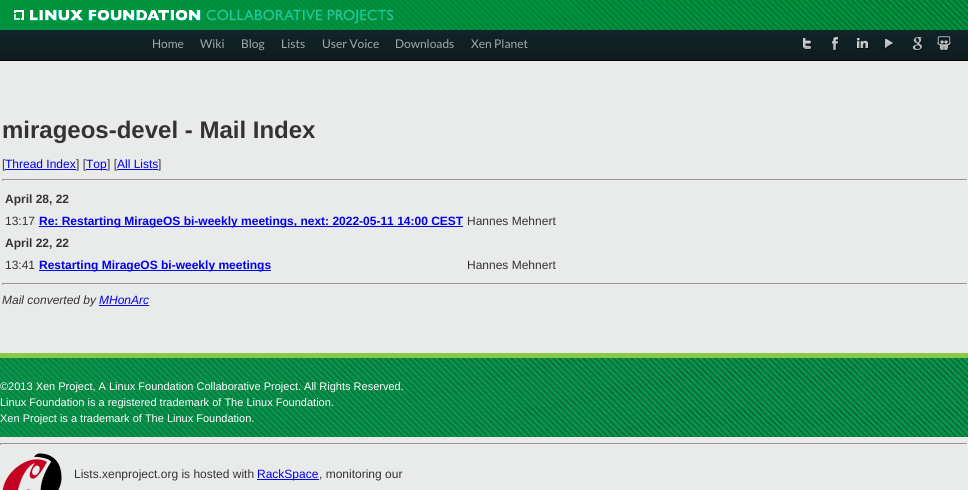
#include <cairo.h>
#include <math.h>
#include <stddef.h>


static void set_color(cairo_t *cr, unsigned color) {
    cairo_set_source_rgb(cr, (color >> 16) / 255.0, (color >> 8 & 255) / 255.0, (color & 255) / 255.0);
}

static void draw_text(cairo_t *cr, double x, double y, const char *s, const char *family, double size, int italic, int bold, unsigned color) {
    cairo_select_font_face(cr, family, italic ? CAIRO_FONT_SLANT_ITALIC : CAIRO_FONT_SLANT_NORMAL,
        bold ? CAIRO_FONT_WEIGHT_BOLD : CAIRO_FONT_WEIGHT_NORMAL);
    cairo_set_font_size(cr, size);
    set_color(cr, color);
    cairo_move_to(cr, x, y);
    cairo_show_text(cr, s);
}

static void fill_rect(cairo_t *cr, double x, double y, double w, double h, unsigned color) {
    set_color(cr, color);
    cairo_rectangle(cr, x, y, w, h);
    cairo_fill(cr);
}

static void draw_image(cairo_t *cr, const char *path, double x, double y, double w, double h) {
    cairo_surface_t *image = cairo_image_surface_create_from_png(path);
    cairo_save(cr);
    cairo_set_source_surface(cr, image, x, y);
    cairo_rectangle(cr, x, y, w, h);
    cairo_fill(cr);
    cairo_restore(cr);
    cairo_surface_destroy(image);
}

int main(void) {
    cairo_surface_t *surface = cairo_image_surface_create(CAIRO_FORMAT_RGB24, 968, 490);
    cairo_t *cr = cairo_create(surface);
    cairo_font_options_t *options = cairo_font_options_create();
    cairo_font_options_set_hint_metrics(options, CAIRO_HINT_METRICS_OFF);
    cairo_font_options_set_hint_style(options, CAIRO_HINT_STYLE_NONE);
    cairo_set_font_options(cr, options);
    cairo_set_miter_limit(cr, 4);
    cairo_pattern_t *gradient;
    set_color(cr, 0xE9EAEA);
    cairo_paint(cr);
    draw_image(cr, "assets/img1.png", 0, 0, 968, 30);
    draw_image(cr, "assets/img2.png", 14, 9, 379, 15);
    gradient = cairo_pattern_create_linear(484, 30, 484, 60);
    cairo_pattern_add_color_stop_rgba(gradient, 0, 0.071, 0.145, 0.161, 1);
    cairo_pattern_add_color_stop_rgba(gradient, 1, 0.051, 0.106, 0.118, 1);
    cairo_set_source(cr, gradient);
    cairo_pattern_destroy(gradient);
    cairo_rectangle(cr, 0, 30, 968, 30);
    cairo_fill(cr);
    fill_rect(cr, 0, 60, 968, 1, 0x000000);
    draw_text(cr, 152, 48, "Home", "Lato", 12, 0, 0, 0xA1A9AB);
    draw_text(cr, 200, 48, "Wiki", "Lato", 12, 0, 0, 0xA1A9AB);
    draw_text(cr, 241, 48, "Blog", "Lato", 12, 0, 0, 0xA1A9AB);
    draw_text(cr, 281, 48, "Lists", "Lato", 12, 0, 0, 0xA1A9AB);
    draw_text(cr, 322, 48, "User Voice", "Lato", 12, 0, 0, 0xA1A9AB);
    draw_text(cr, 395, 48, "Downloads", "Lato", 12, 0, 0, 0xA1A9AB);
    draw_text(cr, 471, 48, "Xen Planet", "Lato", 12, 0, 0, 0xA1A9AB);
    draw_image(cr, "assets/img3.png", 803, 38, 9, 12);
    draw_image(cr, "assets/img4.png", 832, 37, 7, 14);
    draw_image(cr, "assets/img5.png", 857, 38, 12, 11);
    draw_image(cr, "assets/img6.png", 885, 39, 9, 10);
    draw_image(cr, "assets/img7.png", 913, 37, 10, 14);
    draw_image(cr, "assets/img8.png", 937, 36, 15, 15);
    draw_text(cr, 2, 138, "mirageos-devel - Mail Index", "Liberation Sans", 24, 0, 1, 0x333333);
    draw_text(cr, 2, 168, "[", "Liberation Sans", 12, 0, 0, 0x333333);
    fill_rect(cr, 5, 169, 71, 1, 0x0000EE);
    draw_text(cr, 5, 168, "Thread Index", "Liberation Sans", 12, 0, 0, 0x0000EE);
    draw_text(cr, 76, 168, "] [", "Liberation Sans", 12, 0, 0, 0x333333);
    fill_rect(cr, 86, 169, 21, 1, 0x0000EE);
    draw_text(cr, 86, 168, "Top", "Liberation Sans", 12, 0, 0, 0x0000EE);
    draw_text(cr, 107, 168, "] [", "Liberation Sans", 12, 0, 0, 0x333333);
    draw_text(cr, 117, 168, "All Lists", "Liberation Sans", 12, 0, 0, 0x0000EE);
    draw_text(cr, 158, 168, "]", "Liberation Sans", 12, 0, 0, 0x333333);
    fill_rect(cr, 117, 169, 41, 1, 0x0000EE);
    fill_rect(cr, 2, 179, 966, 1, 0x939393);
    fill_rect(cr, 967, 179, 1, 2, 0xEEEEEE);
    fill_rect(cr, 2, 180, 966, 1, 0xEEEEEE);
    fill_rect(cr, 2, 179, 1, 2, 0x9F9F9F);
    draw_text(cr, 5, 203, "April 28, 22", "Liberation Sans", 12, 0, 1, 0x333333);
    draw_text(cr, 5, 225, "13:17", "Liberation Sans", 12, 0, 0, 0x333333);
    fill_rect(cr, 39, 226, 424, 1, 0x0000EE);
    draw_text(cr, 39, 225, "Re: Restarting MirageOS bi-weekly meetings, next: 2022-05-11 14:00 CEST", "Liberation Sans", 12, 0, 1, 0x0000EE);
    draw_text(cr, 467, 225, "Hannes Mehnert", "Liberation Sans", 12, 0, 0, 0x333333);
    draw_text(cr, 5, 247, "April 22, 22", "Liberation Sans", 12, 0, 1, 0x333333);
    draw_text(cr, 5, 269, "13:41", "Liberation Sans", 12, 0, 0, 0x333333);
    fill_rect(cr, 39, 270, 232, 1, 0x0000EE);
    draw_text(cr, 39, 269, "Restarting MirageOS bi-weekly meetings", "Liberation Sans", 12, 0, 1, 0x0000EE);
    draw_text(cr, 467, 269, "Hannes Mehnert", "Liberation Sans", 12, 0, 0, 0x333333);
    fill_rect(cr, 2, 283, 966, 1, 0x939393);
    fill_rect(cr, 967, 283, 1, 2, 0xEEEEEE);
    fill_rect(cr, 2, 284, 966, 1, 0xEEEEEE);
    fill_rect(cr, 2, 283, 1, 2, 0x9F9F9F);
    draw_text(cr, 2, 304, "Mail converted by", "Liberation Sans", 12, 1, 0, 0x333333);
    draw_text(cr, 99, 304, "MHonArc", "Liberation Sans", 12, 1, 0, 0x0000EE);
    fill_rect(cr, 99, 305, 50, 1, 0x0000EE);
    draw_image(cr, "assets/img9.png", 0, 358, 968, 79);
    fill_rect(cr, 0, 353, 968, 5, 0x8AC945);
    draw_text(cr, 0, 390, "©2013 Xen Project, A Linux Foundation Collaborative Project. All Rights Reserved.", "Liberation Sans", 11, 0, 0, 0xFFFFFF);
    draw_text(cr, 0, 406, "Linux Foundation is a registered trademark of The Linux Foundation.", "Liberation Sans", 11, 0, 0, 0xFFFFFF);
    draw_text(cr, 0, 422, "Xen Project is a trademark of The Linux Foundation.", "Liberation Sans", 11, 0, 0, 0xFFFFFF);
    fill_rect(cr, 0, 443, 968, 1, 0x939393);
    fill_rect(cr, 967, 443, 1, 2, 0xEEEEEE);
    fill_rect(cr, 0, 444, 968, 1, 0xEEEEEE);
    fill_rect(cr, 0, 443, 1, 2, 0x9F9F9F);
    draw_image(cr, "assets/img10.png", 2, 453, 60, 37);
    draw_text(cr, 74, 478, "Lists.xenproject.org is hosted with", "Liberation Sans", 12, 0, 0, 0x333333);
    fill_rect(cr, 257, 479, 62, 1, 0x0000EE);
    draw_text(cr, 257, 478, "RackSpace", "Liberation Sans", 12, 0, 0, 0x0000EE);
    draw_text(cr, 319, 478, ", monitoring our", "Liberation Sans", 12, 0, 0, 0x333333);
    cairo_surface_write_to_png(surface, "output.png");
    cairo_font_options_destroy(options);
    cairo_destroy(cr);
    cairo_surface_destroy(surface);
    return 0;
}
